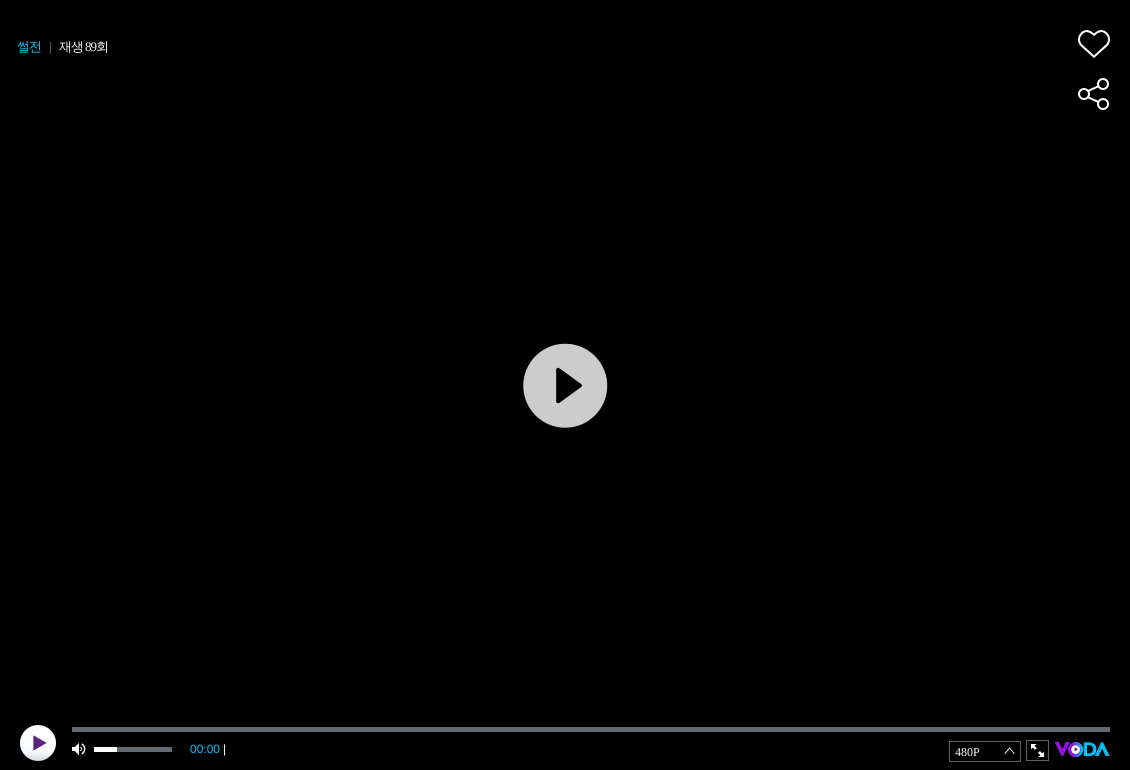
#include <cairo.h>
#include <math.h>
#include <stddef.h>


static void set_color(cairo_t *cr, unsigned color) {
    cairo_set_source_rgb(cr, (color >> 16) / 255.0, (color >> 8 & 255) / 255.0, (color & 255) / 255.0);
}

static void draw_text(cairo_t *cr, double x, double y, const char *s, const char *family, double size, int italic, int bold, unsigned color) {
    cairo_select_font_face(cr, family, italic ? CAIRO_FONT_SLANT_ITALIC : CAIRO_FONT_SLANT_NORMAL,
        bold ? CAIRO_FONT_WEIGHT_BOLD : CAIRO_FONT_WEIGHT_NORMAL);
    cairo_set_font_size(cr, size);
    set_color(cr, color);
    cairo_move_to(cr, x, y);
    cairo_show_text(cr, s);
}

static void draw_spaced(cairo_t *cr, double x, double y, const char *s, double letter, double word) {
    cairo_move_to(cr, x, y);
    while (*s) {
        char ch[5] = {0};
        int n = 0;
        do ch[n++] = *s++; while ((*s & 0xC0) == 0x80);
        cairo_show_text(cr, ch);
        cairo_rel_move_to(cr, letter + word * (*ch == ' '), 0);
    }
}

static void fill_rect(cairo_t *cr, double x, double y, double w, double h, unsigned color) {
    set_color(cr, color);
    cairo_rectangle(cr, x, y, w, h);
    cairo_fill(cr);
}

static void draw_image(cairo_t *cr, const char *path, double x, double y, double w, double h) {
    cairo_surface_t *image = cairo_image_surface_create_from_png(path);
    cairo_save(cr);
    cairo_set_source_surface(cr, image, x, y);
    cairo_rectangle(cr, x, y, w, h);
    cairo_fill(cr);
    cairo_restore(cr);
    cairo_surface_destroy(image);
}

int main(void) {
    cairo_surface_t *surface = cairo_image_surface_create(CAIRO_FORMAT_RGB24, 1130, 770);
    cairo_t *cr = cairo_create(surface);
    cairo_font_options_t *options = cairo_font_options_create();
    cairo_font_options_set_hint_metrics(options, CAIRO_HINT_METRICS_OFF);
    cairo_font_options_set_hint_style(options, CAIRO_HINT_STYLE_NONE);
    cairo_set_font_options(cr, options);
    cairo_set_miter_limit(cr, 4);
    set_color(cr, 0x000000);
    cairo_paint(cr);
    draw_image(cr, "assets/img1.png", 1078, 30, 32, 28);
    draw_image(cr, "assets/img2.png", 1078, 78, 31, 32);
    draw_image(cr, "assets/img3.png", 523, 343, 85, 85);
    cairo_select_font_face(cr, "WenQuanYi Zen Hei Medium", CAIRO_FONT_SLANT_NORMAL, CAIRO_FONT_WEIGHT_NORMAL);
    cairo_set_font_size(cr, 13);
    set_color(cr, 0x00C8FF);
    draw_spaced(cr, 17, 51, "썰전", -1, 0);
    cairo_select_font_face(cr, "Liberation Serif", CAIRO_FONT_SLANT_NORMAL, CAIRO_FONT_WEIGHT_NORMAL);
    set_color(cr, 0x888888);
    draw_spaced(cr, 49, 51, "|", -1, 0);
    cairo_select_font_face(cr, "WenQuanYi Zen Hei Medium", CAIRO_FONT_SLANT_NORMAL, CAIRO_FONT_WEIGHT_NORMAL);
    set_color(cr, 0xFFFFFF);
    draw_spaced(cr, 59, 51, "재생", -1, 0);
    cairo_select_font_face(cr, "Liberation Serif", CAIRO_FONT_SLANT_NORMAL, CAIRO_FONT_WEIGHT_NORMAL);
    draw_spaced(cr, 85, 51, "89", -1, 0);
    cairo_select_font_face(cr, "WenQuanYi Zen Hei Medium", CAIRO_FONT_SLANT_NORMAL, CAIRO_FONT_WEIGHT_NORMAL);
    draw_spaced(cr, 96, 51, "회", -1, 0);
    fill_rect(cr, 72, 727, 1038, 5, 0x636971);
    draw_text(cr, 190, 753, "00:00", "Liberation Sans", 12, 0, 0, 0x02C1F5);
    draw_text(cr, 223, 753, "|", "Liberation Sans", 12, 0, 0, 0xFFFFFF);
    draw_image(cr, "assets/img4.png", 20, 725, 36, 36);
    draw_image(cr, "assets/img5.png", 72, 743, 14, 13);
    fill_rect(cr, 117, 747, 55, 5, 0x636972);
    fill_rect(cr, 94, 747, 23, 5, 0xFFFFFF);
    cairo_rectangle(cr, 949.5, 741.5, 71, 20);
    set_color(cr, 0x5D6168);
    cairo_set_line_width(cr, 1);
    cairo_stroke(cr);
    draw_text(cr, 955, 756, "480P", "Liberation Serif", 12, 0, 0, 0xFFFFFF);
    draw_image(cr, "assets/img6.png", 1004, 747, 11, 8);
    draw_image(cr, "assets/img7.png", 1031, 744, 13, 13);
    cairo_rectangle(cr, 1026.5, 740.5, 22, 20);
    set_color(cr, 0x5D6168);
    cairo_stroke(cr);
    draw_image(cr, "assets/img8.png", 1054, 742, 56, 16);
    cairo_surface_write_to_png(surface, "output.png");
    cairo_font_options_destroy(options);
    cairo_destroy(cr);
    cairo_surface_destroy(surface);
    return 0;
}
